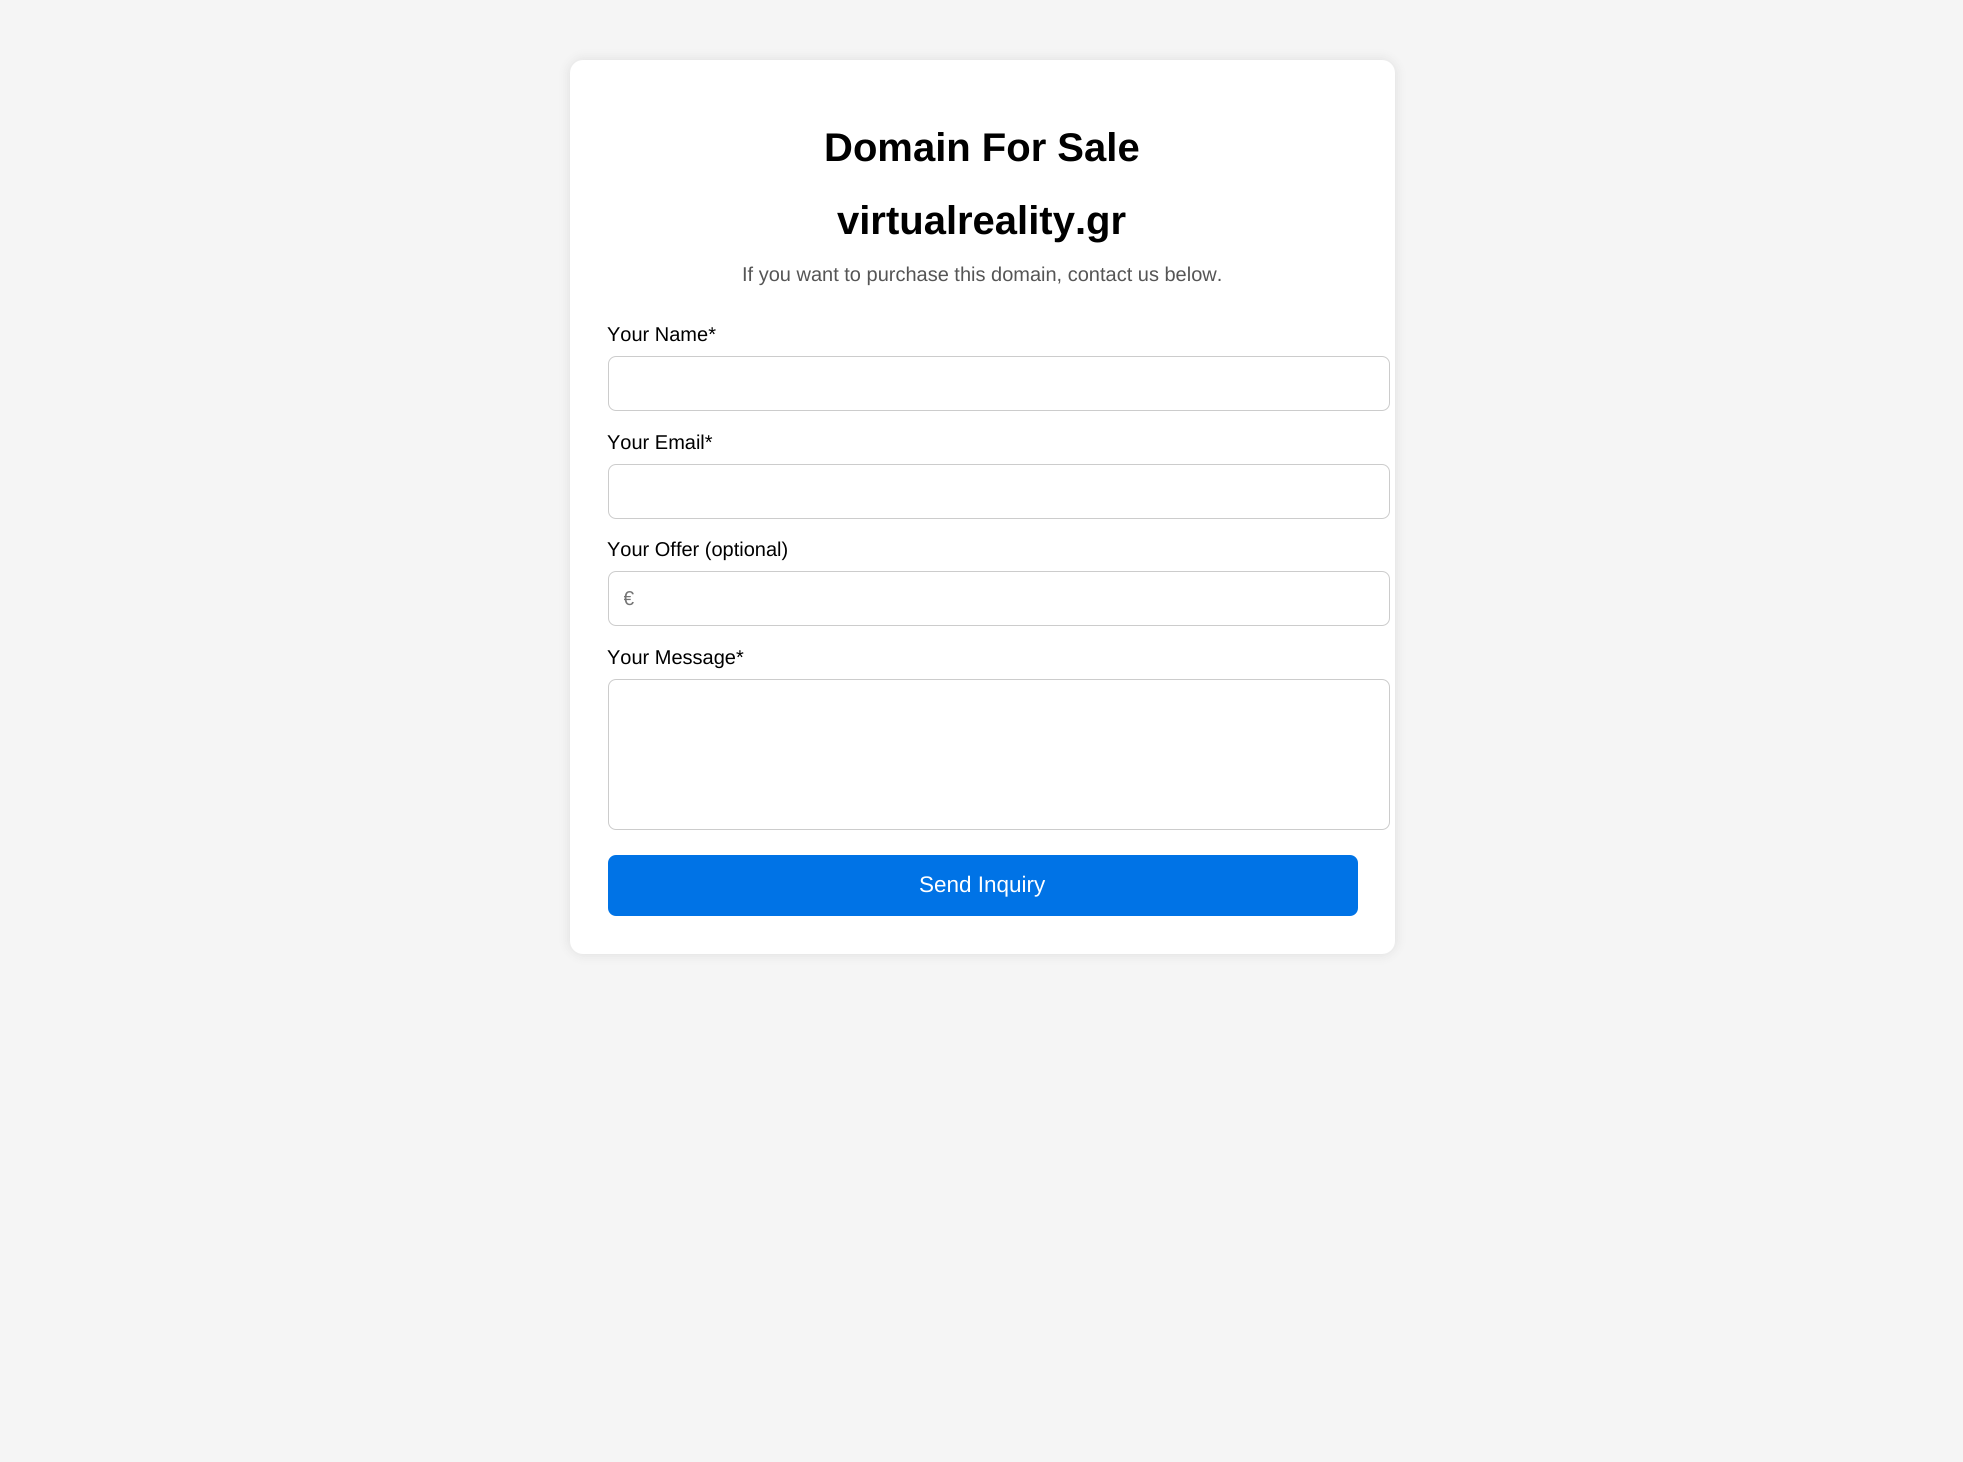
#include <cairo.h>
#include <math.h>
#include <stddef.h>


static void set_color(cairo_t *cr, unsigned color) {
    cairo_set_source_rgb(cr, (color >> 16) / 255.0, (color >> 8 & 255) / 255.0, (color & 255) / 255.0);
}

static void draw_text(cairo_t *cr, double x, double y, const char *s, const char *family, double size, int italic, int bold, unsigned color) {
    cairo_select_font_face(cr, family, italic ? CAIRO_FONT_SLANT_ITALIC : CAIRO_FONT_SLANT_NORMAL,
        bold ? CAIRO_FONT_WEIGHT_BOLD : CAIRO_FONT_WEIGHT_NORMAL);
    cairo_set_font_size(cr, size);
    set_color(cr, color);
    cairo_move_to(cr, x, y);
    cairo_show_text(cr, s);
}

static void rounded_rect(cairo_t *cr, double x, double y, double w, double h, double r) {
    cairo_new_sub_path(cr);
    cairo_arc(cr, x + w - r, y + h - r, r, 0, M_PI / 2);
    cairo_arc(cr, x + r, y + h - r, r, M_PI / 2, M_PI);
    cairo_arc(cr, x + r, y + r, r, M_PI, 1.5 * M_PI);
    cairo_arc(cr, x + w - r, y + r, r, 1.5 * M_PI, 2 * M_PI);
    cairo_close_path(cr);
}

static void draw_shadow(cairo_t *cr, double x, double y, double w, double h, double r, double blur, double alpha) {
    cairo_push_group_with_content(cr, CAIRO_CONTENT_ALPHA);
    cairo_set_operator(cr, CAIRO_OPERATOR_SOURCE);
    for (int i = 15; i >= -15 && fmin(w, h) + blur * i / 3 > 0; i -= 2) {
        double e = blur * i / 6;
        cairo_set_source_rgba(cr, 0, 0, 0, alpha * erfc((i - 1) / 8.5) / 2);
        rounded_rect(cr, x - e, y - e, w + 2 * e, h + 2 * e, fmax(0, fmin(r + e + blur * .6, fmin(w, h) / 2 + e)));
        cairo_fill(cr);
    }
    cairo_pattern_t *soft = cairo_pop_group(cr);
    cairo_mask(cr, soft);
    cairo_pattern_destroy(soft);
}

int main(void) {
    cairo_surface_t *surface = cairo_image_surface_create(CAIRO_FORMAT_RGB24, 1963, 1462);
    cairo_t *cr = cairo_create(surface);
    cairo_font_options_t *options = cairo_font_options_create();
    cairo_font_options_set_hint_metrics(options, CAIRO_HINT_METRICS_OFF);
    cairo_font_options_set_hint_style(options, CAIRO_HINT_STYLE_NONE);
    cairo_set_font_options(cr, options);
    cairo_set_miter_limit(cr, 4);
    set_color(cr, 0xF5F5F5);
    cairo_paint(cr);
    set_color(cr, 0x000000);
    draw_shadow(cr, 570, 60, 825, 894, 13, 6, 0.1);
    set_color(cr, 0xFFFFFF);
    rounded_rect(cr, 570, 60, 825, 894, 13);
    cairo_fill(cr);
    draw_text(cr, 824, 161, "Domain For Sale", "Liberation Sans", 40, 0, 1, 0x000000);
    draw_text(cr, 837, 234, "virtualreality.gr", "Liberation Sans", 40, 0, 1, 0x000000);
    draw_text(cr, 742, 281, "If you want to purchase this domain, contact us below.", "Liberation Sans", 20, 0, 0, 0x555555);
    draw_text(cr, 607, 341, "Your Name*", "Liberation Sans", 20, 0, 0, 0x000000);
    rounded_rect(cr, 608.5, 356.5, 781, 54, 7.5);
    set_color(cr, 0xCCCCCC);
    cairo_set_line_width(cr, 1);
    cairo_stroke(cr);
    draw_text(cr, 607, 449, "Your Email*", "Liberation Sans", 20, 0, 0, 0x000000);
    rounded_rect(cr, 608.5, 464.5, 781, 54, 7.5);
    set_color(cr, 0xCCCCCC);
    cairo_stroke(cr);
    draw_text(cr, 607, 556, "Your Offer (optional)", "Liberation Sans", 20, 0, 0, 0x000000);
    rounded_rect(cr, 608.5, 571.5, 781, 54, 7.5);
    set_color(cr, 0xCCCCCC);
    cairo_stroke(cr);
    cairo_save(cr);
    cairo_rectangle(cr, 624, 588, 750, 22);
    cairo_clip(cr);
    draw_text(cr, 623, 605, "€", "Liberation Sans", 20, 0, 0, 0x757575);
    cairo_restore(cr);
    draw_text(cr, 607, 664, "Your Message*", "Liberation Sans", 20, 0, 0, 0x000000);
    rounded_rect(cr, 608.5, 679.5, 781, 150, 7.5);
    set_color(cr, 0xCCCCCC);
    cairo_stroke(cr);
    set_color(cr, 0x0073E6);
    rounded_rect(cr, 608, 855, 750, 61, 8);
    cairo_fill(cr);
    draw_text(cr, 919, 892, "Send Inquiry", "Liberation Sans", 22.5, 0, 0, 0xFFFFFF);
    cairo_surface_write_to_png(surface, "output.png");
    cairo_font_options_destroy(options);
    cairo_destroy(cr);
    cairo_surface_destroy(surface);
    return 0;
}
